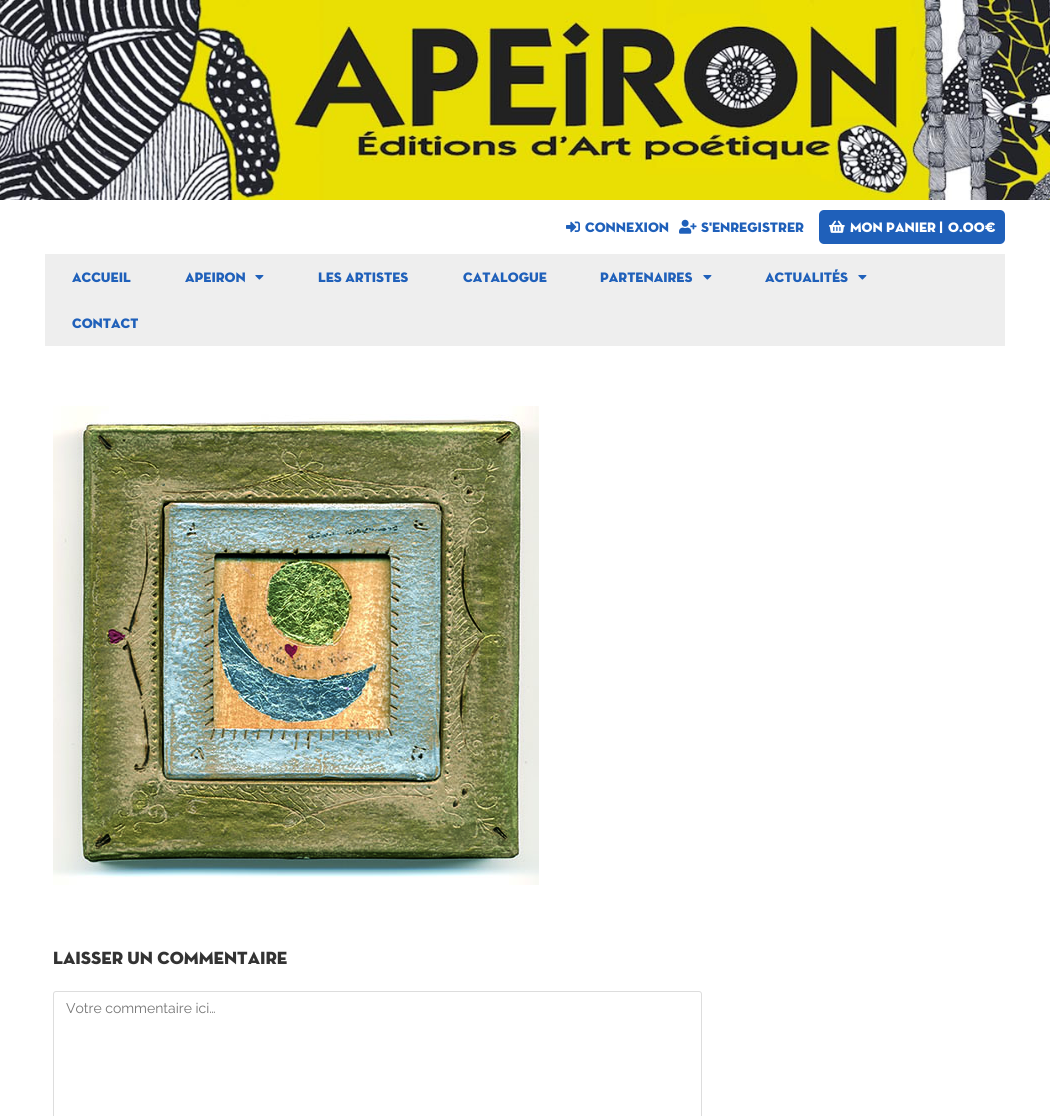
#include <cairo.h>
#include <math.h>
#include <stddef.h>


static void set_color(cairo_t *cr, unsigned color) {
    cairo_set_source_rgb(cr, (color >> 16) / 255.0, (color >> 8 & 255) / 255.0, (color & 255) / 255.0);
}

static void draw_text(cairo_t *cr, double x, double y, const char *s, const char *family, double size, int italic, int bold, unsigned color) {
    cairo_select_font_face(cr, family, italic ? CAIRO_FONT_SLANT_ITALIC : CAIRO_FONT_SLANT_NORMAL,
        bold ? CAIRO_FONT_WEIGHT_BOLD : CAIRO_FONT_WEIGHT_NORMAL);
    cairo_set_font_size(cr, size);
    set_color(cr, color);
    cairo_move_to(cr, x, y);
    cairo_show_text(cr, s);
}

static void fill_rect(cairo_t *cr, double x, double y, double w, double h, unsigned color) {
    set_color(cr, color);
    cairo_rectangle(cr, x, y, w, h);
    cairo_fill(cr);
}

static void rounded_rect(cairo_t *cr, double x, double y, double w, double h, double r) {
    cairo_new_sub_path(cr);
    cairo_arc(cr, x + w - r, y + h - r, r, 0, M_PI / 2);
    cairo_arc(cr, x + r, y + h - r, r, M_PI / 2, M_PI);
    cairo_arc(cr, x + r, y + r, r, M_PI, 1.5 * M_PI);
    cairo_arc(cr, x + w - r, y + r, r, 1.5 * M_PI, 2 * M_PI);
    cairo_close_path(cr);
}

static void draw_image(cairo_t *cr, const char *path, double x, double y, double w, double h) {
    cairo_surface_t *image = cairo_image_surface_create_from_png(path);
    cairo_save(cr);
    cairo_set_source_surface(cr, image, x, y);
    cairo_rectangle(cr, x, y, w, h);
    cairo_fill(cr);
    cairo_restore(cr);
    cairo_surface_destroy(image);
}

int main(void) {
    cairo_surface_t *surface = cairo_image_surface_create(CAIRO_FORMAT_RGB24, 1050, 1116);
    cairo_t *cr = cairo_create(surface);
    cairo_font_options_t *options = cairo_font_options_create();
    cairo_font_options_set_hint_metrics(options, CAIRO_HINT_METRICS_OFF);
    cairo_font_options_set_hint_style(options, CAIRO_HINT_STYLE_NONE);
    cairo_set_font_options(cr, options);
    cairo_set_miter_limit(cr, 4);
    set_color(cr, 0xFFFFFF);
    cairo_paint(cr);
    draw_image(cr, "assets/img1.png", 0, 0, 1050, 200);
    draw_image(cr, "assets/img2.png", 566, 221, 14, 12);
    draw_text(cr, 585, 232, "Connexion", "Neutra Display", 14, 0, 0, 0x1F60BA);
    draw_image(cr, "assets/img3.png", 679, 219, 18, 15);
    draw_text(cr, 701, 232, "S'enregistrer", "Neutra Display", 14, 0, 0, 0x1F60BA);
    rounded_rect(cr, 819, 210, 186, 34, 5);
    cairo_fill(cr);
    draw_image(cr, "assets/img4.png", 829, 220, 16, 13);
    draw_text(cr, 850, 232, "MON PANIER |", "Neutra Display", 14, 0, 0, 0xFFFFFF);
    draw_text(cr, 948, 232, "0.00€", "Neutra Display", 14, 0, 0, 0xFFFFFF);
    fill_rect(cr, 45, 254, 960, 92, 0xEEEEEE);
    draw_text(cr, 72, 282, "Accueil", "Neutra Display", 14, 0, 0, 0x1F60BA);
    draw_text(cr, 185, 282, "Apeiron", "Neutra Display", 14, 0, 0, 0x1F60BA);
    draw_image(cr, "assets/img5.png", 255, 275, 9, 5);
    draw_text(cr, 318, 282, "Les artistes", "Neutra Display", 14, 0, 0, 0x1F60BA);
    draw_text(cr, 463, 282, "Catalogue", "Neutra Display", 14, 0, 0, 0x1F60BA);
    draw_text(cr, 600, 282, "Partenaires", "Neutra Display", 14, 0, 0, 0x1F60BA);
    draw_image(cr, "assets/img5.png", 703, 275, 9, 5);
    draw_text(cr, 765, 282, "Actualités", "Neutra Display", 14, 0, 0, 0x1F60BA);
    draw_image(cr, "assets/img5.png", 858, 275, 9, 5);
    draw_text(cr, 72, 328, "Contact", "Neutra Display", 14, 0, 0, 0x1F60BA);
    draw_image(cr, "assets/img6.png", 53, 406, 486, 479);
    draw_text(cr, 53, 964, "LAISSER UN COMMENTAIRE", "Neutra Display", 18, 0, 0, 0x333333);
    rounded_rect(cr, 53.5, 991.5, 648, 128, 2.5);
    set_color(cr, 0xDDDDDD);
    cairo_set_line_width(cr, 1);
    cairo_stroke(cr);
    draw_text(cr, 66, 1013, "Votre commentaire ici…", "Raleway", 14, 0, 0, 0x757575);
    cairo_surface_write_to_png(surface, "output.png");
    cairo_font_options_destroy(options);
    cairo_destroy(cr);
    cairo_surface_destroy(surface);
    return 0;
}
